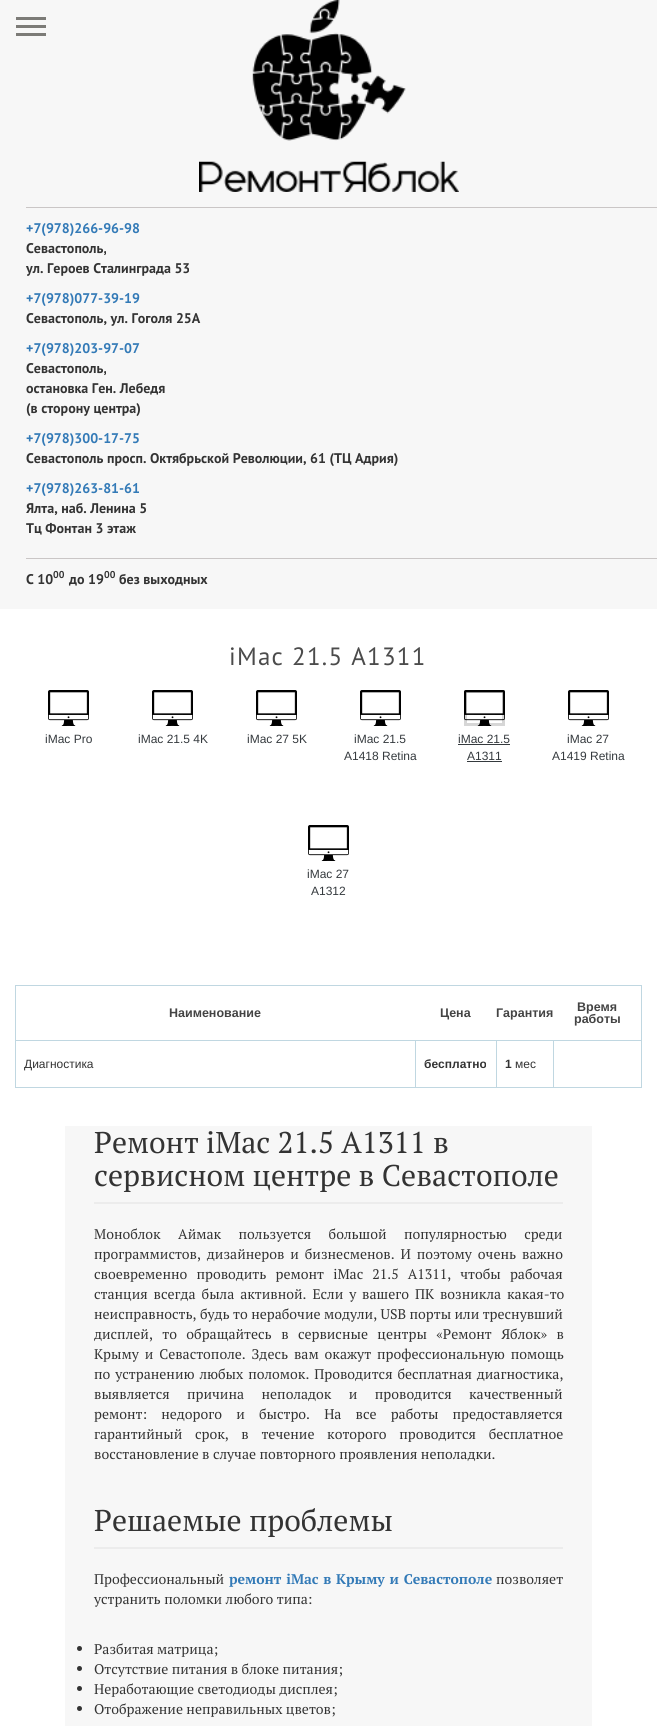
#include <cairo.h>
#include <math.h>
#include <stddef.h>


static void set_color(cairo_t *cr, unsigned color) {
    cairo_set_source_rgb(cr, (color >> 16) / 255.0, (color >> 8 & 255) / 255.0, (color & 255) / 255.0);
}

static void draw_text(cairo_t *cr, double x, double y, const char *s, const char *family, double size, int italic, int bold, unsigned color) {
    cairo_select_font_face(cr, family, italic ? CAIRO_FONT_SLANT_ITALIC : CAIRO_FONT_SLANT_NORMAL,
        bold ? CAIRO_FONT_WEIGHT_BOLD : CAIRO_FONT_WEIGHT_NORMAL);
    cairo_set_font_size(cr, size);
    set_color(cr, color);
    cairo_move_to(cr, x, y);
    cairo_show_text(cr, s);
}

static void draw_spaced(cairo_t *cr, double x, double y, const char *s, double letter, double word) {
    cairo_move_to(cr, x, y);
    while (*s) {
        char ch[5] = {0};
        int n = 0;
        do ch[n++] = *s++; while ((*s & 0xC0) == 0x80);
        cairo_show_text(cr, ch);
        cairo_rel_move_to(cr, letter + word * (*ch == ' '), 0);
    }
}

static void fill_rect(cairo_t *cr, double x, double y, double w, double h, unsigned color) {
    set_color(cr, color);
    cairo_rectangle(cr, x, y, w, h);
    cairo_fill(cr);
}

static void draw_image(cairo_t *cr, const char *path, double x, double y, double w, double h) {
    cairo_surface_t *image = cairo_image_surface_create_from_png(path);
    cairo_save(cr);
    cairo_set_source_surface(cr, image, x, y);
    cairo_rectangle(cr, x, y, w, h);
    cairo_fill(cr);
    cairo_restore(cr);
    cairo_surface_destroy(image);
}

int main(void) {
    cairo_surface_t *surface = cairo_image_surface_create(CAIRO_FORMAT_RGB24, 657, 1726);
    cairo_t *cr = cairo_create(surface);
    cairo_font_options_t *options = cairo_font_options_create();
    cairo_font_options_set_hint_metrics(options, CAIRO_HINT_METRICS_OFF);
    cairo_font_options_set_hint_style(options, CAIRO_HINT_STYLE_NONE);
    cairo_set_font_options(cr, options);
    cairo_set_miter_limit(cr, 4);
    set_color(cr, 0xF7F7F7);
    cairo_paint(cr);
    fill_rect(cr, 16, 25, 30, 3, 0x7C7B77);
    fill_rect(cr, 16, 17, 30, 3, 0x7C7B77);
    fill_rect(cr, 16, 33, 30, 3, 0x7C7B77);
    draw_image(cr, "assets/img1.png", 199, 0, 260, 192);
    fill_rect(cr, 26, 207, 631, 1, 0xCAC6C6);
    draw_text(cr, 26, 233, "+7(978)266-96-98", "PT Sans", 14, 0, 1, 0x337AB7);
    draw_text(cr, 26, 253, "Севастополь,", "PT Sans", 14, 0, 1, 0x333333);
    draw_text(cr, 26, 273, "ул. Героев Сталинграда 53", "PT Sans", 14, 0, 1, 0x333333);
    draw_text(cr, 26, 303, "+7(978)077-39-19", "PT Sans", 14, 0, 1, 0x337AB7);
    draw_text(cr, 26, 323, "Севастополь, ул. Гоголя 25А", "PT Sans", 14, 0, 1, 0x333333);
    draw_text(cr, 26, 353, "+7(978)203-97-07", "PT Sans", 14, 0, 1, 0x337AB7);
    draw_text(cr, 26, 373, "Севастополь,", "PT Sans", 14, 0, 1, 0x333333);
    draw_text(cr, 26, 393, "остановка Ген. Лебедя", "PT Sans", 14, 0, 1, 0x333333);
    draw_text(cr, 26, 413, "(в сторону центра)", "PT Sans", 14, 0, 1, 0x333333);
    draw_text(cr, 26, 443, "+7(978)300-17-75", "PT Sans", 14, 0, 1, 0x337AB7);
    draw_text(cr, 26, 463, "Севастополь просп. Октябрьской Революции, 61 (ТЦ Адрия)", "PT Sans", 14, 0, 1, 0x333333);
    draw_text(cr, 26, 493, "+7(978)263-81-61", "PT Sans", 14, 0, 1, 0x337AB7);
    draw_text(cr, 26, 513, "Ялта, наб. Ленина 5", "PT Sans", 14, 0, 1, 0x333333);
    draw_text(cr, 26, 533, "Тц Фонтан 3 этаж", "PT Sans", 14, 0, 1, 0x333333);
    fill_rect(cr, 26, 558, 631, 1, 0xCAC6C6);
    draw_text(cr, 26, 584, "C 10", "PT Sans", 14, 0, 1, 0x333333);
    draw_text(cr, 53, 578, "00", "PT Sans", 10, 0, 1, 0x333333);
    draw_text(cr, 69, 584, "до 19", "PT Sans", 14, 0, 1, 0x333333);
    draw_text(cr, 104, 578, "00", "PT Sans", 10, 0, 1, 0x333333);
    draw_text(cr, 119, 584, "без выходных", "PT Sans", 14, 0, 1, 0x333333);
    fill_rect(cr, 0, 609, 657, 1117, 0xFFFFFF);
    cairo_select_font_face(cr, "PT Sans", CAIRO_FONT_SLANT_NORMAL, CAIRO_FONT_WEIGHT_NORMAL);
    cairo_set_font_size(cr, 25);
    set_color(cr, 0x4B4B4B);
    draw_spaced(cr, 229, 665, "iMac 21.5 A1311", 1.25, 0);
    draw_image(cr, "assets/img2.png", 48, 690, 41, 36);
    draw_text(cr, 45, 743, "iMac Pro", "Liberation Sans", 12, 0, 0, 0x353A3E);
    draw_image(cr, "assets/img3.png", 152, 690, 41, 36);
    draw_text(cr, 138, 743, "iMac 21.5 4K", "Liberation Sans", 12, 0, 0, 0x353A3E);
    draw_image(cr, "assets/img3.png", 256, 690, 41, 36);
    draw_text(cr, 247, 743, "iMac 27 5K", "Liberation Sans", 12, 0, 0, 0x353A3E);
    draw_image(cr, "assets/img2.png", 360, 690, 41, 36);
    draw_text(cr, 354, 743, "iMac 21.5", "Liberation Sans", 12, 0, 0, 0x353A3E);
    draw_text(cr, 344, 760, "A1418 Retina", "Liberation Sans", 12, 0, 0, 0x353A3E);
    cairo_rectangle(cr, 465.5, 691.5, 38, 33);
    set_color(cr, 0xD6D6D6);
    cairo_set_line_width(cr, 3);
    cairo_stroke(cr);
    draw_image(cr, "assets/img4.png", 464, 690, 41, 36);
    draw_text(cr, 458, 743, "iMac 21.5", "Liberation Sans", 12, 0, 0, 0x353A3E);
    fill_rect(cr, 458, 744, 52, 1, 0x353A3E);
    draw_text(cr, 467, 760, "A1311", "Liberation Sans", 12, 0, 0, 0x353A3E);
    fill_rect(cr, 467, 761, 35, 1, 0x353A3E);
    draw_image(cr, "assets/img2.png", 568, 690, 41, 36);
    draw_text(cr, 567, 743, "iMac 27", "Liberation Sans", 12, 0, 0, 0x353A3E);
    draw_text(cr, 552, 760, "A1419 Retina", "Liberation Sans", 12, 0, 0, 0x353A3E);
    draw_image(cr, "assets/img3.png", 308, 825, 41, 36);
    draw_text(cr, 307, 878, "iMac 27", "Liberation Sans", 12, 0, 0, 0x353A3E);
    draw_text(cr, 311, 895, "A1312", "Liberation Sans", 12, 0, 0, 0x353A3E);
    fill_rect(cr, 15, 985, 627, 1, 0xC0D7E1);
    fill_rect(cr, 641, 985, 1, 55, 0xC0D7E1);
    fill_rect(cr, 15, 985, 1, 103, 0xC0D7E1);
    draw_text(cr, 169, 1017, "Наименование", "Liberation Sans", 12.5, 0, 1, 0x444444);
    draw_text(cr, 440, 1017, "Цена", "Liberation Sans", 12.5, 0, 1, 0x444444);
    draw_text(cr, 496, 1017, "Гарантия", "Liberation Sans", 12.5, 0, 1, 0x444444);
    draw_text(cr, 577, 1011, "Время", "Liberation Sans", 12.5, 0, 1, 0x444444);
    draw_text(cr, 574, 1023, "работы", "Liberation Sans", 12.5, 0, 1, 0x444444);
    fill_rect(cr, 553, 1040, 89, 1, 0xC0D7E1);
    fill_rect(cr, 641, 1040, 1, 48, 0xC0D7E1);
    fill_rect(cr, 553, 1087, 89, 1, 0xC0D7E1);
    fill_rect(cr, 553, 1040, 1, 48, 0xC0D7E1);
    fill_rect(cr, 496, 1040, 58, 1, 0xC0D7E1);
    fill_rect(cr, 496, 1087, 58, 1, 0xC0D7E1);
    fill_rect(cr, 496, 1040, 1, 48, 0xC0D7E1);
    fill_rect(cr, 415, 1040, 82, 1, 0xC0D7E1);
    fill_rect(cr, 415, 1087, 82, 1, 0xC0D7E1);
    fill_rect(cr, 415, 1040, 1, 48, 0xC0D7E1);
    fill_rect(cr, 15, 1040, 401, 1, 0xC0D7E1);
    fill_rect(cr, 15, 1087, 401, 1, 0xC0D7E1);
    draw_text(cr, 24, 1068, "Диагностика", "Liberation Sans", 12, 0, 0, 0x333333);
    draw_text(cr, 424, 1068, "бесплатно", "Liberation Sans", 12, 0, 1, 0x333333);
    draw_text(cr, 505, 1068, "1", "Liberation Sans", 12, 0, 1, 0x333333);
    draw_text(cr, 515, 1068, "мес", "Liberation Sans", 12, 0, 0, 0x333333);
    fill_rect(cr, 65, 1126, 527, 600, 0xF7F7F7);
    draw_text(cr, 94, 1153, "Ремонт iMac 21.5 A1311 в", "PT Serif", 30, 0, 0, 0x333333);
    draw_text(cr, 94, 1186, "сервисном центре в Севастополе", "PT Serif", 30, 0, 0, 0x333333);
    fill_rect(cr, 94, 1202, 469, 2, 0xECECEC);
    cairo_set_font_size(cr, 14);
    set_color(cr, 0x333333);
    draw_spaced(cr, 94, 1239, "Моноблок Аймак пользуется большой популярностью среди", 0, 14);
    draw_spaced(cr, 94, 1259, "программистов, дизайнеров и бизнесменов. И поэтому очень важно", 0, 2.5);
    draw_spaced(cr, 94, 1279, "своевременно проводить ремонт iMac 21.5 A1311, чтобы рабочая", 0, 5.75);
    draw_spaced(cr, 94, 1299, "станция всегда была активной. Если у вашего ПК возникла какая-то", 0, 2.5);
    draw_text(cr, 94, 1319, "неисправность, будь то нерабочие модули, USB порты или треснувший", "PT Serif", 14, 0, 0, 0x333333);
    draw_spaced(cr, 94, 1339, "дисплей, то обращайтесь в сервисные центры «Ремонт Яблок» в", 0, 6);
    draw_spaced(cr, 94, 1359, "Крыму и Севастополе. Здесь вам окажут профессиональную помощь", 0, 2.5);
    draw_spaced(cr, 94, 1379, "по устранению любых поломок. Проводится бесплатная диагностика,", 0, 1.5);
    draw_spaced(cr, 94, 1399, "выявляется причина неполадок и проводится качественный", 0, 14);
    draw_spaced(cr, 94, 1419, "ремонт: недорого и быстро. На все работы предоставляется", 0, 10.75);
    draw_spaced(cr, 94, 1439, "гарантийный срок, в течение которого проводится бесплатное", 0, 9.25);
    draw_text(cr, 94, 1459, "восстановление в случае повторного проявления неполадки.", "PT Serif", 14, 0, 0, 0x333333);
    draw_text(cr, 94, 1531, "Решаемые проблемы", "PT Serif", 30, 0, 0, 0x333333);
    fill_rect(cr, 94, 1547, 469, 2, 0xECECEC);
    draw_text(cr, 94, 1584, "Профессиональный", "PT Serif", 14, 0, 0, 0x333333);
    cairo_select_font_face(cr, "PT Serif", CAIRO_FONT_SLANT_NORMAL, CAIRO_FONT_WEIGHT_BOLD);
    set_color(cr, 0x337AB7);
    draw_spaced(cr, 229, 1584, "ремонт iMac в Крыму и Севастополе", 0, 1);
    draw_text(cr, 496, 1584, "позволяет", "PT Serif", 14, 0, 0, 0x333333);
    draw_text(cr, 94, 1604, "устранить поломки любого типа:", "PT Serif", 14, 0, 0, 0x333333);
    cairo_new_path(cr);
    cairo_arc(cr, 79.5, 1648.5, 2.5, 0, 2 * M_PI);
    cairo_fill(cr);
    draw_text(cr, 94, 1654, "Разбитая матрица;", "PT Serif", 14, 0, 0, 0x333333);
    cairo_new_path(cr);
    cairo_arc(cr, 79.5, 1668.5, 2.5, 0, 2 * M_PI);
    cairo_fill(cr);
    draw_text(cr, 94, 1674, "Отсутствие питания в блоке питания;", "PT Serif", 14, 0, 0, 0x333333);
    cairo_new_path(cr);
    cairo_arc(cr, 79.5, 1688.5, 2.5, 0, 2 * M_PI);
    cairo_fill(cr);
    draw_text(cr, 94, 1694, "Неработающие светодиоды дисплея;", "PT Serif", 14, 0, 0, 0x333333);
    cairo_new_path(cr);
    cairo_arc(cr, 79.5, 1708.5, 2.5, 0, 2 * M_PI);
    cairo_fill(cr);
    draw_text(cr, 94, 1714, "Отображение неправильных цветов;", "PT Serif", 14, 0, 0, 0x333333);
    cairo_surface_write_to_png(surface, "output.png");
    cairo_font_options_destroy(options);
    cairo_destroy(cr);
    cairo_surface_destroy(surface);
    return 0;
}
